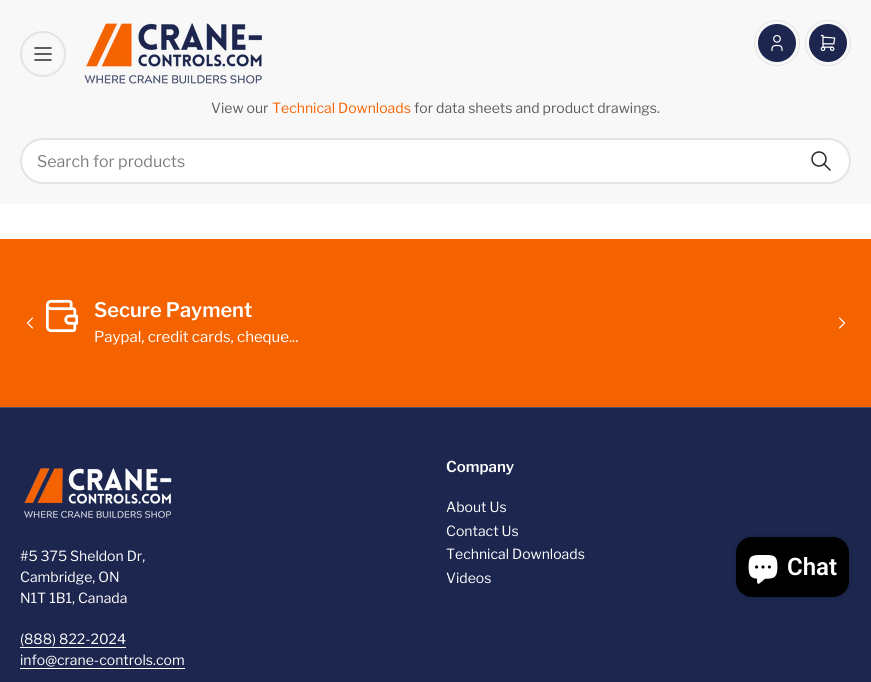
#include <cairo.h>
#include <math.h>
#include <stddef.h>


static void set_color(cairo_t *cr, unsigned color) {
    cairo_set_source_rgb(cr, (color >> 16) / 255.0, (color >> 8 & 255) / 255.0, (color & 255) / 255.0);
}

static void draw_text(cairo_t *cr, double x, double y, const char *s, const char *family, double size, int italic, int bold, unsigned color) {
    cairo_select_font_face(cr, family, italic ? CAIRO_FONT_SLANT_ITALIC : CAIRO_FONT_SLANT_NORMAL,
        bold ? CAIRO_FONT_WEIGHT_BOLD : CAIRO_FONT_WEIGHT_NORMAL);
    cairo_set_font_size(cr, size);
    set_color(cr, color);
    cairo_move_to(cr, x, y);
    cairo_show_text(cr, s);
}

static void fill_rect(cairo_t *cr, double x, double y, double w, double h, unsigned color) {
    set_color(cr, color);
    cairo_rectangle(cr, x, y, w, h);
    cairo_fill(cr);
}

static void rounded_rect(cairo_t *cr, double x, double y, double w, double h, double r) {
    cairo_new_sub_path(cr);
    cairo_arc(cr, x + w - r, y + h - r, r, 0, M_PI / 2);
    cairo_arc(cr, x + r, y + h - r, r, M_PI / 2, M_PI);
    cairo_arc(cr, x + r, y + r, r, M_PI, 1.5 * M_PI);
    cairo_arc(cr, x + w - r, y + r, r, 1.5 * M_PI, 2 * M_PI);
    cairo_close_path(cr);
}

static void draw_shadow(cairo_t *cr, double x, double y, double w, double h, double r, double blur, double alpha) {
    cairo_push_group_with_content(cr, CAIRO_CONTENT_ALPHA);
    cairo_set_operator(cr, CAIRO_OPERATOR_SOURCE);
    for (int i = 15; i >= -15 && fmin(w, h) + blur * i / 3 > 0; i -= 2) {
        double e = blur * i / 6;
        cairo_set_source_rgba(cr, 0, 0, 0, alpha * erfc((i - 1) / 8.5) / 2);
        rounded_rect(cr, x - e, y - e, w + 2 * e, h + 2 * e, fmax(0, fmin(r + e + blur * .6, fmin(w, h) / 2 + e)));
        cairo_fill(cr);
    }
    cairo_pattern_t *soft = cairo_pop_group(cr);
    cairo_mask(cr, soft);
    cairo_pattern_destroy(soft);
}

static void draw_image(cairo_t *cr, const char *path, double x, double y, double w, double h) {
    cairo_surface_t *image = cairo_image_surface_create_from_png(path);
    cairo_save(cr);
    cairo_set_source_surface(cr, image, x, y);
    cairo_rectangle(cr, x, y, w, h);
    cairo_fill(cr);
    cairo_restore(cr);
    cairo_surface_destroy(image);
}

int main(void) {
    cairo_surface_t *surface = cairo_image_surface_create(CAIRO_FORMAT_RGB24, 871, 682);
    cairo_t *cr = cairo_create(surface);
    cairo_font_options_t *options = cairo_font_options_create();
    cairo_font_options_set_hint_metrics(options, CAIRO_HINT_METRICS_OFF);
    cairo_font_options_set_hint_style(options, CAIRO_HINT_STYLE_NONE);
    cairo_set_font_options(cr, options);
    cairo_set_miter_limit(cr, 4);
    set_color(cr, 0xFFFFFF);
    cairo_paint(cr);
    fill_rect(cr, 0, 0, 871, 204, 0xF8F8F8);
    cairo_arc(cr, 43, 54, 22, 0, 2 * M_PI);
    set_color(cr, 0xE4E4E4);
    cairo_stroke(cr);
    draw_image(cr, "assets/img1.png", 34, 47, 18, 14);
    draw_image(cr, "assets/img2.png", 84, 23, 178, 61);
    cairo_arc(cr, 777, 43, 22.5, 0, 2 * M_PI);
    cairo_set_line_width(cr, 1);
    cairo_stroke(cr);
    set_color(cr, 0x1C264E);
    cairo_arc(cr, 777, 43, 19, 0, 2 * M_PI);
    cairo_fill(cr);
    draw_image(cr, "assets/img3.png", 771, 34, 12, 17);
    cairo_arc(cr, 828, 43, 22.5, 0, 2 * M_PI);
    set_color(cr, 0xE4E4E4);
    cairo_stroke(cr);
    set_color(cr, 0x1C264E);
    cairo_arc(cr, 828, 43, 19, 0, 2 * M_PI);
    cairo_fill(cr);
    draw_image(cr, "assets/img4.png", 820, 34, 16, 18);
    draw_text(cr, 211, 113, "View our", "Libre Franklin", 14, 0, 0, 0x5C5C5C);
    draw_text(cr, 272, 113, "Technical Downloads", "Libre Franklin", 14, 0, 0, 0xF56300);
    draw_text(cr, 414, 113, "for data sheets and product drawings.", "Libre Franklin", 14, 0, 0, 0x5C5C5C);
    set_color(cr, 0xFFFFFF);
    rounded_rect(cr, 21, 139, 829, 44, 22);
    cairo_fill_preserve(cr);
    set_color(cr, 0xE4E4E4);
    cairo_set_line_width(cr, 2);
    cairo_stroke(cr);
    draw_text(cr, 37, 167, "Search for products", "Libre Franklin", 16, 0, 0, 0x7D7D7D);
    draw_image(cr, "assets/img5.png", 811, 151, 20, 20);
    fill_rect(cr, 0, 239, 871, 168, 0xF56300);
    draw_image(cr, "assets/img6.png", 45, 299, 34, 34);
    draw_text(cr, 94, 317, "Secure Payment", "Libre Franklin SemiBold", 20, 0, 0, 0xFFFFFF);
    draw_text(cr, 94, 342, "Paypal, credit cards, cheque...", "Libre Franklin", 15, 0, 0, 0xFFFFFF);
    cairo_new_path(cr);
    cairo_move_to(cr, 32.5, 318);
    cairo_line_to(cr, 27.5, 323);
    cairo_line_to(cr, 32.5, 328);
    cairo_set_line_width(cr, 1.2);
    cairo_set_line_cap(cr, CAIRO_LINE_CAP_ROUND);
    cairo_set_line_join(cr, CAIRO_LINE_JOIN_ROUND);
    cairo_stroke(cr);
    cairo_new_path(cr);
    cairo_move_to(cr, 839.5, 318);
    cairo_line_to(cr, 844.5, 323);
    cairo_line_to(cr, 839.5, 328);
    cairo_stroke(cr);
    fill_rect(cr, 0, 408, 871, 274, 0x1C264E);
    fill_rect(cr, 0, 407, 871, 1, 0x495171);
    draw_text(cr, 446, 472, "Company", "Libre Franklin SemiBold", 15, 0, 0, 0xFFFFFF);
    draw_text(cr, 446, 512, "About Us", "Libre Franklin", 14, 0, 0, 0xFFFFFF);
    draw_text(cr, 446, 536, "Contact Us", "Libre Franklin", 14, 0, 0, 0xFFFFFF);
    draw_text(cr, 446, 559, "Technical Downloads", "Libre Franklin", 14, 0, 0, 0xFFFFFF);
    draw_text(cr, 446, 583, "Videos", "Libre Franklin", 14, 0, 0, 0xFFFFFF);
    draw_image(cr, "assets/img7.png", 24, 468, 148, 50);
    draw_text(cr, 20, 561, "#5 375 Sheldon Dr,", "Libre Franklin", 14, 0, 0, 0xFFFFFF);
    draw_text(cr, 20, 582, "Cambridge, ON", "Libre Franklin", 14, 0, 0, 0xFFFFFF);
    draw_text(cr, 20, 603, "N1T 1B1, Canada", "Libre Franklin", 14, 0, 0, 0xFFFFFF);
    draw_text(cr, 20, 644, "(888) 822-2024", "Libre Franklin", 14, 0, 0, 0xFFFFFF);
    fill_rect(cr, 20, 647, 106, 1, 0xFFFFFF);
    draw_text(cr, 20, 665, "info@crane-controls.com", "Libre Franklin", 14, 0, 0, 0xFFFFFF);
    fill_rect(cr, 20, 668, 165, 1, 0xFFFFFF);
    set_color(cr, 0x000000);
    draw_shadow(cr, 736, 537, 113, 60, 16, 2.5, 0.15);
    set_color(cr, 0x000000);
    rounded_rect(cr, 736, 537, 113, 60, 16);
    cairo_fill(cr);
    draw_image(cr, "assets/img8.png", 748, 555, 30, 29);
    draw_text(cr, 787, 575, "Chat", "Roboto SemiBold", 24, 0, 0, 0xFFFFFF);
    cairo_surface_write_to_png(surface, "output.png");
    cairo_font_options_destroy(options);
    cairo_destroy(cr);
    cairo_surface_destroy(surface);
    return 0;
}
